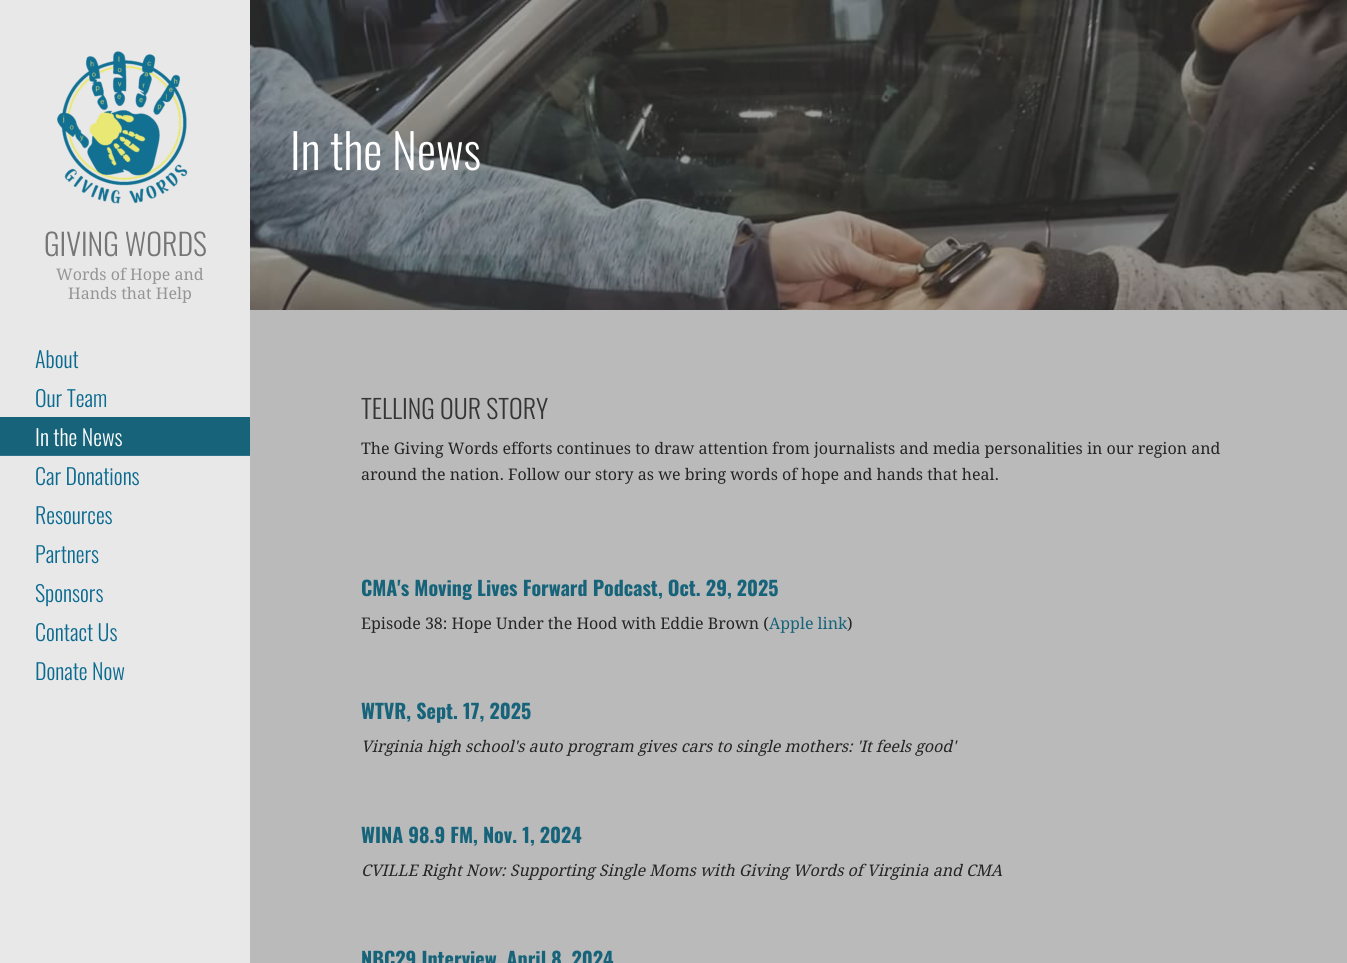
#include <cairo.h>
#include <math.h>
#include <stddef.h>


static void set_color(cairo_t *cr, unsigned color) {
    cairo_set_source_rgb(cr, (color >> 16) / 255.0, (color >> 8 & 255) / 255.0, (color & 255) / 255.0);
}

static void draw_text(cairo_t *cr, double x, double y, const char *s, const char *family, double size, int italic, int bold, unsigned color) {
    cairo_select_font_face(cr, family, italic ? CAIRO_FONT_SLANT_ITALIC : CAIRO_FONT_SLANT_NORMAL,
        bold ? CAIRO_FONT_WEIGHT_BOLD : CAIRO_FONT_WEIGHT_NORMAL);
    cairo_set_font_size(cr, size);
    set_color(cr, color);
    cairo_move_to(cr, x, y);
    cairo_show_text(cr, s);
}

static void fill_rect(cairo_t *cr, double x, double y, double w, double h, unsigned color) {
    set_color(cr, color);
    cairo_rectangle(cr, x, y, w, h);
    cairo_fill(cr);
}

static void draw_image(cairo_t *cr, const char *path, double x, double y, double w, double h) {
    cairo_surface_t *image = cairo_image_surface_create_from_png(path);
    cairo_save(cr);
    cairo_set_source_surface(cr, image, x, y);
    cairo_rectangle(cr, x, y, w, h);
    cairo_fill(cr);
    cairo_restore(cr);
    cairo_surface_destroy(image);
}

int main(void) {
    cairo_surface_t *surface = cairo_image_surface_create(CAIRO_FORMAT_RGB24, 1347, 963);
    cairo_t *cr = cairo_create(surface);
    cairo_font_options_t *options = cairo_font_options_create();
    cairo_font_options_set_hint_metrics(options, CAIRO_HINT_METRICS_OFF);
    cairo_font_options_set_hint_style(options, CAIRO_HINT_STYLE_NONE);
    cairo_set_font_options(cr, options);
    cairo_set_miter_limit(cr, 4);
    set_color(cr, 0xBABABA);
    cairo_paint(cr);
    draw_image(cr, "assets/img1.png", 250, 0, 1097, 310);
    draw_text(cr, 290, 170, "In the News", "Oswald Light", 48, 0, 0, 0xFFFFFF);
    fill_rect(cr, 0, 0, 250, 963, 0xE8E8E8);
    draw_image(cr, "assets/img2.png", 56, 51, 132, 153);
    draw_text(cr, 44, 256, "GIVING WORDS", "Oswald Light", 30, 0, 0, 0x757575);
    draw_text(cr, 56, 280, "Words of Hope and", "Droid Serif", 16, 0, 0, 0x959595);
    draw_text(cr, 68, 299, "Hands that Help", "Droid Serif", 16, 0, 0, 0x959595);
    draw_text(cr, 35, 368, "About", "Oswald Light", 22, 0, 0, 0x0A6A90);
    draw_text(cr, 35, 407, "Our Team", "Oswald Light", 22, 0, 0, 0x0A6A90);
    fill_rect(cr, 0, 417, 250, 38, 0x17637A);
    fill_rect(cr, 0, 455, 250, 1, 0x2E7387);
    draw_text(cr, 35, 446, "In the News", "Oswald Light", 22, 0, 0, 0xFFFFFF);
    draw_text(cr, 35, 485, "Car Donations", "Oswald Light", 22, 0, 0, 0x0A6A90);
    draw_text(cr, 35, 524, "Resources", "Oswald Light", 22, 0, 0, 0x0A6A90);
    draw_text(cr, 35, 563, "Partners", "Oswald Light", 22, 0, 0, 0x0A6A90);
    draw_text(cr, 35, 602, "Sponsors", "Oswald Light", 22, 0, 0, 0x0A6A90);
    draw_text(cr, 35, 641, "Contact Us", "Oswald Light", 22, 0, 0, 0x0A6A90);
    draw_text(cr, 35, 680, "Donate Now", "Oswald Light", 22, 0, 0, 0x0A6A90);
    draw_text(cr, 361, 419, "TELLING OUR STORY", "Oswald Light", 26, 0, 0, 0x353535);
    draw_text(cr, 361, 454, "The Giving Words efforts continues to draw attention from journalists and media personalities in our region and", "Droid Serif", 16, 0, 0, 0x252525);
    draw_text(cr, 361, 480, "around the nation. Follow our story as we bring words of hope and hands that heal.", "Droid Serif", 16, 0, 0, 0x252525);
    draw_text(cr, 361, 596, "CMA's Moving Lives Forward Podcast, Oct. 29, 2025", "Oswald", 20, 0, 1, 0x17637A);
    draw_text(cr, 361, 629, "Episode 38: Hope Under the Hood with Eddie Brown (", "Droid Serif", 16, 0, 0, 0x252525);
    draw_text(cr, 769, 629, "Apple link", "Droid Serif", 16, 0, 0, 0x17637A);
    draw_text(cr, 847, 629, ")", "Droid Serif", 16, 0, 0, 0x252525);
    draw_text(cr, 361, 719, "WTVR, Sept. 17, 2025", "Oswald", 20, 0, 1, 0x17637A);
    draw_text(cr, 361, 752, "Virginia high school's auto program gives cars to single mothers: 'It feels good'", "Droid Serif", 16, 1, 0, 0x252525);
    draw_text(cr, 361, 843, "WINA 98.9 FM, Nov. 1, 2024", "Oswald", 20, 0, 1, 0x17637A);
    draw_text(cr, 361, 876, "CVILLE Right Now: Supporting Single Moms with Giving Words of Virginia and CMA", "Droid Serif", 16, 1, 0, 0x252525);
    draw_text(cr, 361, 967, "NBC29 Interview, April 8, 2024", "Oswald", 20, 0, 1, 0x17637A);
    cairo_surface_write_to_png(surface, "output.png");
    cairo_font_options_destroy(options);
    cairo_destroy(cr);
    cairo_surface_destroy(surface);
    return 0;
}
